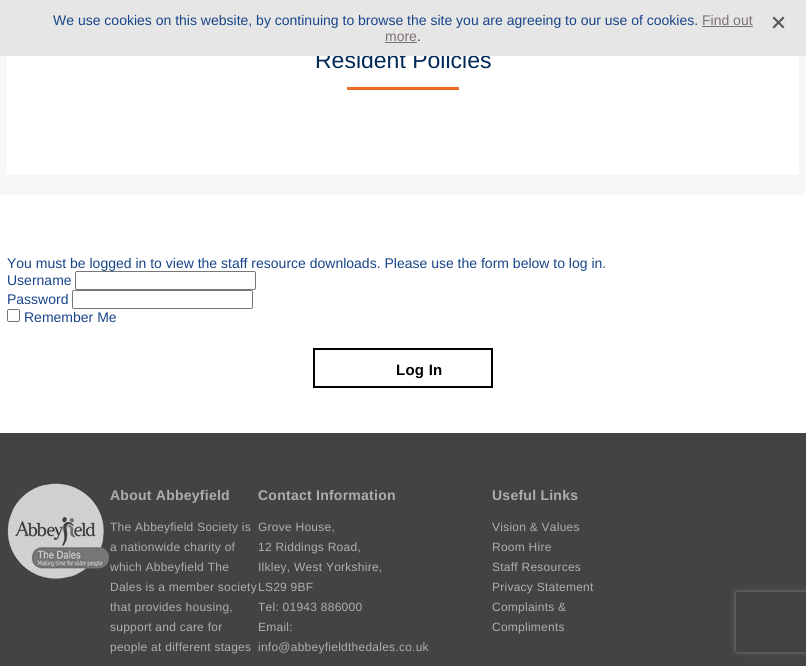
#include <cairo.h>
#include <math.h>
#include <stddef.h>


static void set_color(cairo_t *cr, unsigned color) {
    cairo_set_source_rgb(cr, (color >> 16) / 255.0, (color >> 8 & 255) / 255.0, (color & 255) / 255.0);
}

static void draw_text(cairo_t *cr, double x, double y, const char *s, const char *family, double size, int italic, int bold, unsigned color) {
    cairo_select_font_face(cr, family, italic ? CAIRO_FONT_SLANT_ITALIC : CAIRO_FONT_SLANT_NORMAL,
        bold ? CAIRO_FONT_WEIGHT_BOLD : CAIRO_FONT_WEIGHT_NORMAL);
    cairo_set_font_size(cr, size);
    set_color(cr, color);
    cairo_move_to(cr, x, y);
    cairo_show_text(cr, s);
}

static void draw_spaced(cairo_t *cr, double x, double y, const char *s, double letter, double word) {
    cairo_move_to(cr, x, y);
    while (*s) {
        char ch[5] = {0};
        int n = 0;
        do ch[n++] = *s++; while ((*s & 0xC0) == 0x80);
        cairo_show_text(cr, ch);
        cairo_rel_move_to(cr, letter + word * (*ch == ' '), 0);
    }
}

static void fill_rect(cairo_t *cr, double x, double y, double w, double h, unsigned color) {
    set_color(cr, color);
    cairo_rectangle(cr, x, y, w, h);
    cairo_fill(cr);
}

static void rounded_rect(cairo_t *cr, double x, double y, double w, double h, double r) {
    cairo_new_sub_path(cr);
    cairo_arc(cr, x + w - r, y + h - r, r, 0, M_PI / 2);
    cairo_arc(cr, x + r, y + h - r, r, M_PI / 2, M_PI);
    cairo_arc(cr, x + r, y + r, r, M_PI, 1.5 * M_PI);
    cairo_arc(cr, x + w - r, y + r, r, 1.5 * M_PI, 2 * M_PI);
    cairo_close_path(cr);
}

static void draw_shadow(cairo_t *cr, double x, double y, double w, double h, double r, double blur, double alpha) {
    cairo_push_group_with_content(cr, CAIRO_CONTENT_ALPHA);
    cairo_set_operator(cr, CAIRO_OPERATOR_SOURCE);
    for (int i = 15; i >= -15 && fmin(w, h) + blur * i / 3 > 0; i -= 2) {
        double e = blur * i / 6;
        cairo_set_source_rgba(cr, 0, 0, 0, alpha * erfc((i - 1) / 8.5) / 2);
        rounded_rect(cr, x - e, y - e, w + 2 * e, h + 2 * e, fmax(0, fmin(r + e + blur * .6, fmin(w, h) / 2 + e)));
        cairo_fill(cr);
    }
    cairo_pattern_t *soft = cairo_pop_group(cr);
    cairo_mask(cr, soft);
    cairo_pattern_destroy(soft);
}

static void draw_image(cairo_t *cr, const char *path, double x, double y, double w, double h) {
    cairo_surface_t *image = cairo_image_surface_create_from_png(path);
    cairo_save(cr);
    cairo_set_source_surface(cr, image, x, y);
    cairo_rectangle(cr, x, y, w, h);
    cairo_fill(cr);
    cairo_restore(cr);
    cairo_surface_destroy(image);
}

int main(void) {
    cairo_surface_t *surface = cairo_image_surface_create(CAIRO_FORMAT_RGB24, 806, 666);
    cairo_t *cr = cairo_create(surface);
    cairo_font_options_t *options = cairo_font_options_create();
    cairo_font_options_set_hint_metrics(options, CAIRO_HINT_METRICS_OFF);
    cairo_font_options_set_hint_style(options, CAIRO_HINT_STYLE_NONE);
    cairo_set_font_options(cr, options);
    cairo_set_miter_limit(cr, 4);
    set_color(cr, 0xF7F7F7);
    cairo_paint(cr);
    fill_rect(cr, 7, 56, 792, 119, 0xFFFFFF);
    draw_text(cr, 315, 68, "Resident Policies", "Liberation Sans", 23, 0, 0, 0x002958);
    fill_rect(cr, 0, 0, 806, 56, 0xE6E6E6);
    draw_text(cr, 53, 25, "We use cookies on this website, by continuing to browse the site you are agreeing to our use of cookies.", "Liberation Sans", 14, 0, 0, 0x184489);
    draw_text(cr, 702, 25, "Find out", "Liberation Sans", 14, 0, 0, 0x7B7370);
    fill_rect(cr, 702, 26, 51, 1, 0x7B7370);
    draw_text(cr, 385, 41, "more", "Liberation Sans", 14, 0, 0, 0x7B7370);
    fill_rect(cr, 385, 42, 32, 1, 0x7B7370);
    draw_text(cr, 417, 41, ".", "Liberation Sans", 14, 0, 0, 0x184489);
    set_color(cr, 0x575757);
    cairo_new_path(cr);
    cairo_move_to(cr, 772.5, 27);
    cairo_line_to(cr, 783, 16.5);
    cairo_line_to(cr, 784.5, 18);
    cairo_line_to(cr, 774, 28.5);
    cairo_close_path(cr);
    cairo_fill(cr);
    cairo_new_path(cr);
    cairo_move_to(cr, 774, 16.5);
    cairo_line_to(cr, 784.5, 27);
    cairo_line_to(cr, 783, 28.5);
    cairo_line_to(cr, 772.5, 18);
    cairo_close_path(cr);
    cairo_fill(cr);
    fill_rect(cr, 347, 87, 112, 3, 0xED6B26);
    fill_rect(cr, 0, 195, 806, 238, 0xFFFFFF);
    draw_text(cr, 7, 268, "You must be logged in to view the staff resource downloads. Please use the form below to log in.", "Liberation Sans", 14, 0, 0, 0x184489);
    draw_text(cr, 7, 285, "Username", "Liberation Sans", 14, 0, 0, 0x184489);
    rounded_rect(cr, 75.5, 271.5, 180, 18, 1.5);
    set_color(cr, 0x767676);
    cairo_set_line_width(cr, 1);
    cairo_stroke(cr);
    draw_text(cr, 7, 304, "Password", "Liberation Sans", 14, 0, 0, 0x184489);
    rounded_rect(cr, 72.5, 290.5, 180, 18, 1.5);
    set_color(cr, 0x767676);
    cairo_stroke(cr);
    rounded_rect(cr, 7.5, 309.5, 12, 12, 1.5);
    cairo_stroke(cr);
    draw_text(cr, 24, 322, "Remember Me", "Liberation Sans", 14, 0, 0, 0x184489);
    cairo_rectangle(cr, 314, 349, 178, 38);
    set_color(cr, 0x000000);
    cairo_set_line_width(cr, 2);
    cairo_stroke(cr);
    cairo_select_font_face(cr, "Liberation Sans", CAIRO_FONT_SLANT_NORMAL, CAIRO_FONT_WEIGHT_BOLD);
    cairo_set_font_size(cr, 15);
    draw_spaced(cr, 396, 375, "Log In", 0.25, 0);
    fill_rect(cr, 0, 433, 806, 233, 0x444343);
    draw_image(cr, "assets/img1.png", 7, 483, 103, 96);
    cairo_set_font_size(cr, 14);
    set_color(cr, 0xAEAEAE);
    draw_spaced(cr, 110, 500, "About Abbeyfield", 0.25, 0);
    cairo_select_font_face(cr, "Liberation Sans", CAIRO_FONT_SLANT_NORMAL, CAIRO_FONT_WEIGHT_NORMAL);
    cairo_set_font_size(cr, 12);
    draw_spaced(cr, 110, 531, "The Abbeyfield Society is", 0.25, 0);
    draw_spaced(cr, 110, 551, "a nationwide charity of", 0.25, 0);
    draw_spaced(cr, 110, 571, "which Abbeyfield The", 0.25, 0);
    draw_spaced(cr, 110, 591, "Dales is a member society", 0.25, 0);
    draw_spaced(cr, 110, 611, "that provides housing,", 0.25, 0);
    draw_spaced(cr, 110, 631, "support and care for", 0.25, 0);
    draw_spaced(cr, 110, 651, "people at different stages", 0.25, 0);
    cairo_select_font_face(cr, "Liberation Sans", CAIRO_FONT_SLANT_NORMAL, CAIRO_FONT_WEIGHT_BOLD);
    cairo_set_font_size(cr, 14);
    draw_spaced(cr, 258, 500, "Contact Information", 0.25, 0);
    cairo_select_font_face(cr, "Liberation Sans", CAIRO_FONT_SLANT_NORMAL, CAIRO_FONT_WEIGHT_NORMAL);
    cairo_set_font_size(cr, 12);
    draw_spaced(cr, 258, 531, "Grove House,", 0.25, 0);
    draw_spaced(cr, 258, 551, "12 Riddings Road,", 0.25, 0);
    draw_spaced(cr, 258, 571, "Ilkley, West Yorkshire,", 0.25, 0);
    draw_spaced(cr, 258, 591, "LS29 9BF", 0.25, 0);
    draw_spaced(cr, 258, 611, "Tel: 01943 886000", 0.25, 0);
    draw_spaced(cr, 258, 631, "Email:", 0.25, 0);
    draw_spaced(cr, 258, 651, "info@abbeyfieldthedales.co.uk", 0.25, 0);
    cairo_select_font_face(cr, "Liberation Sans", CAIRO_FONT_SLANT_NORMAL, CAIRO_FONT_WEIGHT_BOLD);
    cairo_set_font_size(cr, 14);
    draw_spaced(cr, 492, 500, "Useful Links", 0.25, 0);
    cairo_select_font_face(cr, "Liberation Sans", CAIRO_FONT_SLANT_NORMAL, CAIRO_FONT_WEIGHT_NORMAL);
    cairo_set_font_size(cr, 12);
    draw_spaced(cr, 492, 531, "Vision & Values", 0.25, 0);
    draw_spaced(cr, 492, 551, "Room Hire", 0.25, 0);
    draw_spaced(cr, 492, 571, "Staff Resources", 0.25, 0);
    draw_spaced(cr, 492, 591, "Privacy Statement", 0.25, 0);
    draw_spaced(cr, 492, 611, "Complaints &", 0.25, 0);
    draw_spaced(cr, 492, 631, "Compliments", 0.25, 0);
    cairo_save(cr);
    cairo_set_fill_rule(cr, CAIRO_FILL_RULE_EVEN_ODD);
    cairo_new_path(cr);
    cairo_move_to(cr, 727, 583);
    cairo_line_to(cr, 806, 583);
    cairo_line_to(cr, 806, 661);
    cairo_line_to(cr, 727, 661);
    cairo_close_path(cr);
    cairo_move_to(cr, 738, 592);
    cairo_line_to(cr, 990, 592);
    cairo_curve_to(cr, 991, 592, 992, 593, 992, 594);
    cairo_line_to(cr, 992, 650);
    cairo_curve_to(cr, 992, 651, 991, 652, 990, 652);
    cairo_line_to(cr, 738, 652);
    cairo_curve_to(cr, 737, 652, 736, 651, 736, 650);
    cairo_line_to(cr, 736, 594);
    cairo_curve_to(cr, 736, 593, 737, 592, 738, 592);
    cairo_close_path(cr);
    cairo_clip(cr);
    set_color(cr, 0x808080);
    draw_shadow(cr, 736, 592, 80, 60, 2, 2.5, 1);
    cairo_restore(cr);
    cairo_surface_write_to_png(surface, "output.png");
    cairo_font_options_destroy(options);
    cairo_destroy(cr);
    cairo_surface_destroy(surface);
    return 0;
}
